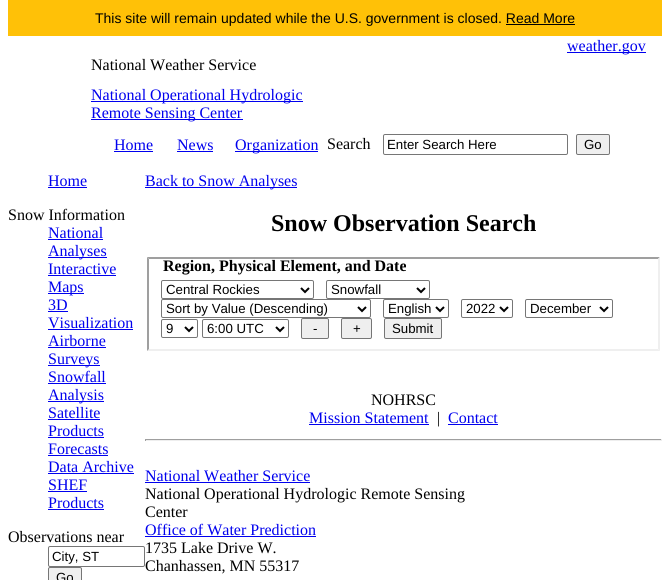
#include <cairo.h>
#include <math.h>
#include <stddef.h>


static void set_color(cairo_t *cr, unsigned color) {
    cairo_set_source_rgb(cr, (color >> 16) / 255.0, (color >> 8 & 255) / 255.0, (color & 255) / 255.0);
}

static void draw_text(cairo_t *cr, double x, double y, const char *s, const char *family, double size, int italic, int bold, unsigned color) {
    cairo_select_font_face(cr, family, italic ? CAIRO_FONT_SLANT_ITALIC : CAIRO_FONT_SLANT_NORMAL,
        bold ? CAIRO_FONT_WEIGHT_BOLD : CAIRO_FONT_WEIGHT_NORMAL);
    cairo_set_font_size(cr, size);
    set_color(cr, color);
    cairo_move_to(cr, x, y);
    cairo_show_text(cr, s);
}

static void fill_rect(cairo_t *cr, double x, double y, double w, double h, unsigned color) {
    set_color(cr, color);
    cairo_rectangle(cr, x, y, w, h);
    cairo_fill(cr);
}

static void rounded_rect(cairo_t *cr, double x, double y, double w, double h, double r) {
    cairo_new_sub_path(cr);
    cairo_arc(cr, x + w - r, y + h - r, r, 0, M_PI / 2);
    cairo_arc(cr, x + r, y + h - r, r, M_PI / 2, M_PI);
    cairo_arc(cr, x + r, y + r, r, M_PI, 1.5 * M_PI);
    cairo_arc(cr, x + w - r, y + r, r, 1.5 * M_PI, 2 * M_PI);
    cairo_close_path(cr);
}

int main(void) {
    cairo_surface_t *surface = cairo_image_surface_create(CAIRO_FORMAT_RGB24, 670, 580);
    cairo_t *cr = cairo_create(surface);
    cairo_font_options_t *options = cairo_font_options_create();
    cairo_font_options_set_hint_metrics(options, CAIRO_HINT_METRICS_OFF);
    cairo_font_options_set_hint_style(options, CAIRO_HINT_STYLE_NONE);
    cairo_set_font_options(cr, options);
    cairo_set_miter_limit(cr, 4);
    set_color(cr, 0xFFFFFF);
    cairo_paint(cr);
    fill_rect(cr, 8, 0, 654, 36, 0xFFC107);
    draw_text(cr, 95, 23, "This site will remain updated while the U.S. government is closed. Read More", "Liberation Sans", 14, 0, 0, 0x000000);
    fill_rect(cr, 506, 24, 69, 1, 0x000000);
    fill_rect(cr, 567, 52, 79, 1, 0x0000EE);
    draw_text(cr, 567, 51, "weather.gov", "Liberation Serif", 16, 0, 0, 0x0000EE);
    draw_text(cr, 91, 70, "National Weather Service", "Liberation Serif", 16, 0, 0, 0x000000);
    fill_rect(cr, 91, 101, 212, 1, 0x0000EE);
    draw_text(cr, 91, 100, "National Operational Hydrologic", "Liberation Serif", 16, 0, 0, 0x0000EE);
    fill_rect(cr, 91, 119, 152, 1, 0x0000EE);
    draw_text(cr, 91, 118, "Remote Sensing Center", "Liberation Serif", 16, 0, 0, 0x0000EE);
    draw_text(cr, 114, 150, "Home", "Liberation Serif", 16, 0, 0, 0x0000EE);
    fill_rect(cr, 114, 151, 39, 1, 0x0000EE);
    draw_text(cr, 177, 150, "News", "Liberation Serif", 16, 0, 0, 0x0000EE);
    fill_rect(cr, 177, 151, 36, 1, 0x0000EE);
    fill_rect(cr, 235, 151, 83, 1, 0x0000EE);
    draw_text(cr, 235, 150, "Organization", "Liberation Serif", 16, 0, 0, 0x0000EE);
    draw_text(cr, 327, 149, "Search", "Liberation Serif", 16, 0, 0, 0x000000);
    rounded_rect(cr, 383.5, 134.5, 184, 20, 1.5);
    set_color(cr, 0x767676);
    cairo_set_line_width(cr, 1);
    cairo_stroke(cr);
    draw_text(cr, 387, 149, "Enter Search Here", "Liberation Sans", 13.25, 0, 0, 0x000000);
    set_color(cr, 0xEFEFEF);
    rounded_rect(cr, 576.5, 134.5, 33, 20, 1.5);
    cairo_fill_preserve(cr);
    set_color(cr, 0x767676);
    cairo_stroke(cr);
    draw_text(cr, 584, 149, "Go", "Liberation Sans", 13.25, 0, 0, 0x000000);
    draw_text(cr, 48, 186, "Home", "Liberation Serif", 16, 0, 0, 0x0000EE);
    fill_rect(cr, 48, 187, 39, 1, 0x0000EE);
    draw_text(cr, 8, 220, "Snow Information", "Liberation Serif", 16, 0, 0, 0x000000);
    draw_text(cr, 48, 238, "National", "Liberation Serif", 16, 0, 0, 0x0000EE);
    fill_rect(cr, 48, 239, 55, 1, 0x0000EE);
    fill_rect(cr, 48, 257, 59, 1, 0x0000EE);
    draw_text(cr, 48, 256, "Analyses", "Liberation Serif", 16, 0, 0, 0x0000EE);
    draw_text(cr, 48, 274, "Interactive", "Liberation Serif", 16, 0, 0, 0x0000EE);
    fill_rect(cr, 48, 275, 68, 1, 0x0000EE);
    fill_rect(cr, 48, 293, 36, 1, 0x0000EE);
    draw_text(cr, 48, 292, "Maps", "Liberation Serif", 16, 0, 0, 0x0000EE);
    draw_text(cr, 48, 310, "3D", "Liberation Serif", 16, 0, 0, 0x0000EE);
    fill_rect(cr, 48, 311, 20, 1, 0x0000EE);
    draw_text(cr, 48, 328, "Visualization", "Liberation Serif", 16, 0, 0, 0x0000EE);
    fill_rect(cr, 48, 329, 85, 1, 0x0000EE);
    draw_text(cr, 48, 346, "Airborne", "Liberation Serif", 16, 0, 0, 0x0000EE);
    fill_rect(cr, 48, 347, 58, 1, 0x0000EE);
    fill_rect(cr, 48, 365, 52, 1, 0x0000EE);
    draw_text(cr, 48, 364, "Surveys", "Liberation Serif", 16, 0, 0, 0x0000EE);
    draw_text(cr, 48, 382, "Snowfall", "Liberation Serif", 16, 0, 0, 0x0000EE);
    fill_rect(cr, 48, 383, 58, 1, 0x0000EE);
    fill_rect(cr, 48, 401, 56, 1, 0x0000EE);
    draw_text(cr, 48, 400, "Analysis", "Liberation Serif", 16, 0, 0, 0x0000EE);
    draw_text(cr, 48, 418, "Satellite", "Liberation Serif", 16, 0, 0, 0x0000EE);
    fill_rect(cr, 48, 419, 52, 1, 0x0000EE);
    draw_text(cr, 48, 436, "Products", "Liberation Serif", 16, 0, 0, 0x0000EE);
    fill_rect(cr, 48, 437, 56, 1, 0x0000EE);
    draw_text(cr, 48, 454, "Forecasts", "Liberation Serif", 16, 0, 0, 0x0000EE);
    fill_rect(cr, 48, 455, 60, 1, 0x0000EE);
    draw_text(cr, 48, 472, "Data Archive", "Liberation Serif", 16, 0, 0, 0x0000EE);
    fill_rect(cr, 48, 473, 86, 1, 0x0000EE);
    draw_text(cr, 48, 490, "SHEF", "Liberation Serif", 16, 0, 0, 0x0000EE);
    fill_rect(cr, 48, 491, 39, 1, 0x0000EE);
    draw_text(cr, 48, 508, "Products", "Liberation Serif", 16, 0, 0, 0x0000EE);
    fill_rect(cr, 48, 509, 56, 1, 0x0000EE);
    draw_text(cr, 8, 542, "Observations near", "Liberation Serif", 16, 0, 0, 0x000000);
    rounded_rect(cr, 48.5, 546.5, 96, 20, 1.5);
    set_color(cr, 0x767676);
    cairo_stroke(cr);
    draw_text(cr, 52, 561, "City, ST", "Liberation Sans", 13.25, 0, 0, 0x000000);
    set_color(cr, 0xEFEFEF);
    rounded_rect(cr, 48.5, 567.5, 33, 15, 1.5);
    cairo_fill_preserve(cr);
    set_color(cr, 0x767676);
    cairo_stroke(cr);
    draw_text(cr, 56, 582, "Go", "Liberation Sans", 13.25, 0, 0, 0x000000);
    fill_rect(cr, 145, 187, 152, 1, 0x0000EE);
    draw_text(cr, 145, 186, "Back to Snow Analyses", "Liberation Serif", 16, 0, 0, 0x0000EE);
    draw_text(cr, 271, 231, "Snow Observation Search", "Liberation Serif", 24, 0, 1, 0x000000);
    set_color(cr, 0x9F9F9F);
    cairo_new_path(cr);
    cairo_move_to(cr, 147, 257);
    cairo_line_to(cr, 660, 257);
    cairo_line_to(cr, 658, 259);
    cairo_line_to(cr, 149, 259);
    cairo_close_path(cr);
    cairo_fill(cr);
    set_color(cr, 0xEFEFEF);
    cairo_new_path(cr);
    cairo_move_to(cr, 660, 257);
    cairo_line_to(cr, 660, 351);
    cairo_line_to(cr, 658, 349);
    cairo_line_to(cr, 658, 259);
    cairo_close_path(cr);
    cairo_fill(cr);
    cairo_new_path(cr);
    cairo_move_to(cr, 660, 351);
    cairo_line_to(cr, 147, 351);
    cairo_line_to(cr, 149, 349);
    cairo_line_to(cr, 658, 349);
    cairo_close_path(cr);
    cairo_fill(cr);
    set_color(cr, 0x9F9F9F);
    cairo_new_path(cr);
    cairo_move_to(cr, 147, 351);
    cairo_line_to(cr, 147, 257);
    cairo_line_to(cr, 149, 259);
    cairo_line_to(cr, 149, 349);
    cairo_close_path(cr);
    cairo_fill(cr);
    draw_text(cr, 163, 271, "Region, Physical Element, and Date", "Liberation Serif", 16, 0, 1, 0x000000);
    rounded_rect(cr, 161.5, 280.5, 152, 18, 1.5);
    set_color(cr, 0x767676);
    cairo_stroke(cr);
    cairo_new_path(cr);
    cairo_move_to(cr, 301, 288);
    cairo_line_to(cr, 305, 292);
    cairo_line_to(cr, 309, 288);
    set_color(cr, 0x000000);
    cairo_set_line_width(cr, 2);
    cairo_stroke(cr);
    draw_text(cr, 166, 294, "Central Rockies", "Liberation Sans", 13.25, 0, 0, 0x000000);
    rounded_rect(cr, 326.5, 280.5, 103, 18, 1.5);
    set_color(cr, 0x767676);
    cairo_set_line_width(cr, 1);
    cairo_stroke(cr);
    cairo_new_path(cr);
    cairo_move_to(cr, 417, 288);
    cairo_line_to(cr, 421, 292);
    cairo_line_to(cr, 425, 288);
    set_color(cr, 0x000000);
    cairo_set_line_width(cr, 2);
    cairo_stroke(cr);
    draw_text(cr, 331, 294, "Snowfall", "Liberation Sans", 13.25, 0, 0, 0x000000);
    rounded_rect(cr, 161.5, 299.5, 209, 18, 1.5);
    set_color(cr, 0x767676);
    cairo_set_line_width(cr, 1);
    cairo_stroke(cr);
    cairo_new_path(cr);
    cairo_move_to(cr, 358, 307);
    cairo_line_to(cr, 362, 311);
    cairo_line_to(cr, 366, 307);
    set_color(cr, 0x000000);
    cairo_set_line_width(cr, 2);
    cairo_stroke(cr);
    draw_text(cr, 166, 313, "Sort by Value (Descending)", "Liberation Sans", 13.25, 0, 0, 0x000000);
    rounded_rect(cr, 383.5, 299.5, 65, 18, 1.5);
    set_color(cr, 0x767676);
    cairo_set_line_width(cr, 1);
    cairo_stroke(cr);
    cairo_new_path(cr);
    cairo_move_to(cr, 436, 307);
    cairo_line_to(cr, 440, 311);
    cairo_line_to(cr, 444, 307);
    set_color(cr, 0x000000);
    cairo_set_line_width(cr, 2);
    cairo_stroke(cr);
    draw_text(cr, 388, 313, "English", "Liberation Sans", 13.25, 0, 0, 0x000000);
    rounded_rect(cr, 461.5, 299.5, 51, 18, 1.5);
    set_color(cr, 0x767676);
    cairo_set_line_width(cr, 1);
    cairo_stroke(cr);
    cairo_new_path(cr);
    cairo_move_to(cr, 500, 307);
    cairo_line_to(cr, 504, 311);
    cairo_line_to(cr, 508, 307);
    set_color(cr, 0x000000);
    cairo_set_line_width(cr, 2);
    cairo_stroke(cr);
    draw_text(cr, 466, 313, "2022", "Liberation Sans", 13.25, 0, 0, 0x000000);
    rounded_rect(cr, 525.5, 299.5, 87, 18, 1.5);
    set_color(cr, 0x767676);
    cairo_set_line_width(cr, 1);
    cairo_stroke(cr);
    cairo_new_path(cr);
    cairo_move_to(cr, 600, 307);
    cairo_line_to(cr, 604, 311);
    cairo_line_to(cr, 608, 307);
    set_color(cr, 0x000000);
    cairo_set_line_width(cr, 2);
    cairo_stroke(cr);
    draw_text(cr, 530, 313, "December", "Liberation Sans", 13.25, 0, 0, 0x000000);
    rounded_rect(cr, 161.5, 319.5, 36, 18, 1.5);
    set_color(cr, 0x767676);
    cairo_set_line_width(cr, 1);
    cairo_stroke(cr);
    cairo_new_path(cr);
    cairo_move_to(cr, 185, 327);
    cairo_line_to(cr, 189, 331);
    cairo_line_to(cr, 193, 327);
    set_color(cr, 0x000000);
    cairo_set_line_width(cr, 2);
    cairo_stroke(cr);
    draw_text(cr, 166, 333, "9", "Liberation Sans", 13.25, 0, 0, 0x000000);
    rounded_rect(cr, 202.5, 319.5, 86, 18, 1.5);
    set_color(cr, 0x767676);
    cairo_set_line_width(cr, 1);
    cairo_stroke(cr);
    cairo_new_path(cr);
    cairo_move_to(cr, 276, 327);
    cairo_line_to(cr, 280, 331);
    cairo_line_to(cr, 284, 327);
    set_color(cr, 0x000000);
    cairo_set_line_width(cr, 2);
    cairo_stroke(cr);
    draw_text(cr, 207, 333, "6:00 UTC", "Liberation Sans", 13.25, 0, 0, 0x000000);
    set_color(cr, 0xEFEFEF);
    rounded_rect(cr, 301.5, 318.5, 27, 20, 1.5);
    cairo_fill_preserve(cr);
    set_color(cr, 0x767676);
    cairo_set_line_width(cr, 1);
    cairo_stroke(cr);
    draw_text(cr, 313, 333, "-", "Liberation Sans", 13.25, 0, 0, 0x000000);
    set_color(cr, 0xEFEFEF);
    rounded_rect(cr, 341.5, 318.5, 30, 20, 1.5);
    cairo_fill_preserve(cr);
    set_color(cr, 0x767676);
    cairo_stroke(cr);
    draw_text(cr, 353, 333, "+", "Liberation Sans", 13.25, 0, 0, 0x000000);
    set_color(cr, 0xEFEFEF);
    rounded_rect(cr, 384.5, 318.5, 57, 20, 1.5);
    cairo_fill_preserve(cr);
    set_color(cr, 0x767676);
    cairo_stroke(cr);
    draw_text(cr, 392, 333, "Submit", "Liberation Sans", 13.25, 0, 0, 0x000000);
    draw_text(cr, 371, 405, "NOHRSC", "Liberation Serif", 16, 0, 0, 0x000000);
    draw_text(cr, 309, 423, "Mission Statement", "Liberation Serif", 16, 0, 0, 0x0000EE);
    fill_rect(cr, 309, 424, 120, 1, 0x0000EE);
    draw_text(cr, 437, 423, "|", "Liberation Serif", 16, 0, 0, 0x000000);
    draw_text(cr, 448, 423, "Contact", "Liberation Serif", 16, 0, 0, 0x0000EE);
    fill_rect(cr, 448, 424, 50, 1, 0x0000EE);
    fill_rect(cr, 145, 439, 517, 1, 0x9F9F9F);
    fill_rect(cr, 661, 439, 1, 2, 0xEEEEEE);
    fill_rect(cr, 145, 440, 517, 1, 0xEEEEEE);
    fill_rect(cr, 145, 439, 1, 2, 0x9F9F9F);
    draw_text(cr, 145, 481, "National Weather Service", "Liberation Serif", 16, 0, 0, 0x0000EE);
    fill_rect(cr, 145, 482, 165, 1, 0x0000EE);
    draw_text(cr, 145, 499, "National Operational Hydrologic Remote Sensing", "Liberation Serif", 16, 0, 0, 0x000000);
    draw_text(cr, 145, 517, "Center", "Liberation Serif", 16, 0, 0, 0x000000);
    draw_text(cr, 145, 535, "Office of Water Prediction", "Liberation Serif", 16, 0, 0, 0x0000EE);
    fill_rect(cr, 145, 536, 171, 1, 0x0000EE);
    draw_text(cr, 145, 553, "1735 Lake Drive W.", "Liberation Serif", 16, 0, 0, 0x000000);
    draw_text(cr, 145, 571, "Chanhassen, MN 55317", "Liberation Serif", 16, 0, 0, 0x000000);
    cairo_surface_write_to_png(surface, "output.png");
    cairo_font_options_destroy(options);
    cairo_destroy(cr);
    cairo_surface_destroy(surface);
    return 0;
}
